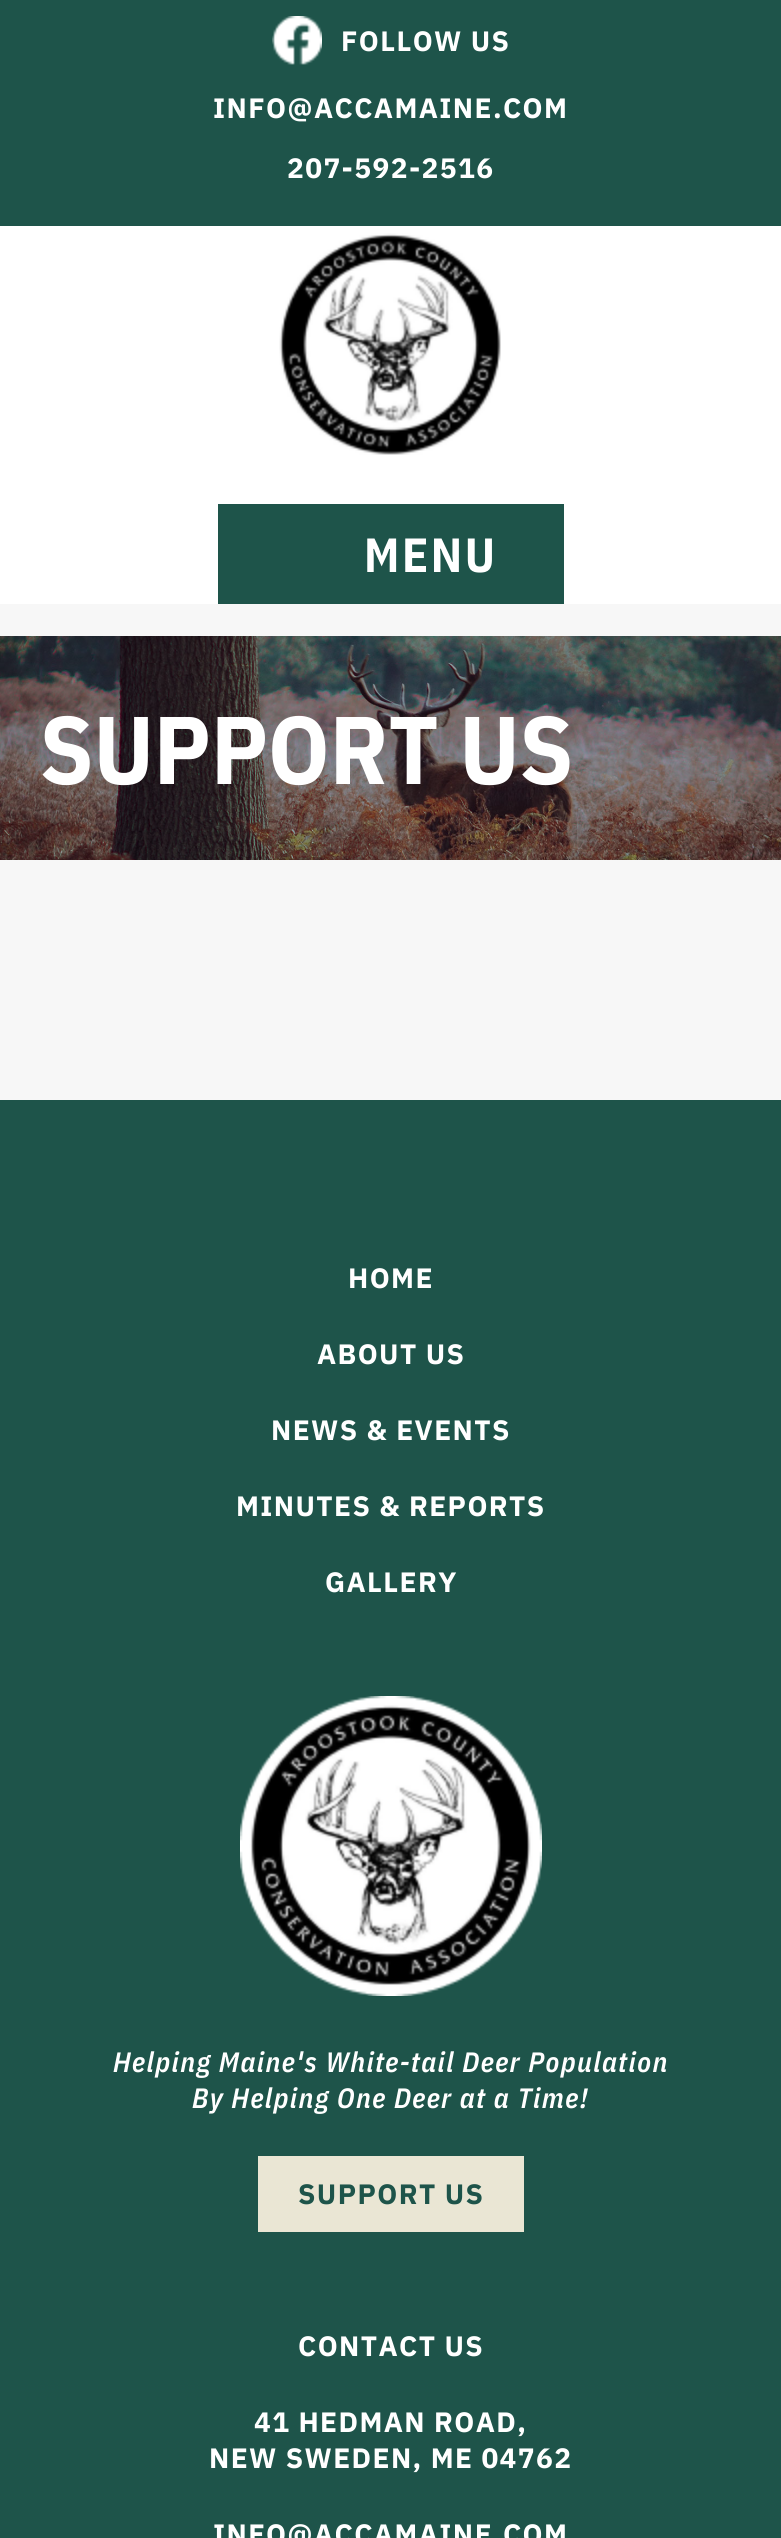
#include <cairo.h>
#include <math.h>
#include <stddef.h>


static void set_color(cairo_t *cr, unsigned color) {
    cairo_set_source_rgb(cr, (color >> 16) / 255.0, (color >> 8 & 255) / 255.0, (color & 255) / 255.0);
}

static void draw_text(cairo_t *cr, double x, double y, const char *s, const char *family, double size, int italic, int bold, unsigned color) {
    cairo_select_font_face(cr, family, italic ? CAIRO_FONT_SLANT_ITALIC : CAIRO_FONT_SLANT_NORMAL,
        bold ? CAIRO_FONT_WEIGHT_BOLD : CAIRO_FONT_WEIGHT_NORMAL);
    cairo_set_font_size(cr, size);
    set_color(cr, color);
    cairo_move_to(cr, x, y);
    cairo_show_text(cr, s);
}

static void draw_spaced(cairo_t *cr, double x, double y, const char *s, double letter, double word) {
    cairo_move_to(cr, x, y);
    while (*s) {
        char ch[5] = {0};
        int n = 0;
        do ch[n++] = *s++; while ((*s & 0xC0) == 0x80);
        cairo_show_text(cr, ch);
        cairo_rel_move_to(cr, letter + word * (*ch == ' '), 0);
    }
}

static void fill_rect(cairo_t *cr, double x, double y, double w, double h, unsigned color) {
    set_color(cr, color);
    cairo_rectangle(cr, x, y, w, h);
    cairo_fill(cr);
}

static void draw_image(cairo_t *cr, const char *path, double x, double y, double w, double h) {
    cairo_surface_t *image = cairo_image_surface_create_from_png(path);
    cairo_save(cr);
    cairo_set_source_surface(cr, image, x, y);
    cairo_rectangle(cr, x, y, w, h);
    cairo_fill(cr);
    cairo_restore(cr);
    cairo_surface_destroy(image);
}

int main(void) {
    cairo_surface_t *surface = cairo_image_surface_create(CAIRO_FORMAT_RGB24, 781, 2538);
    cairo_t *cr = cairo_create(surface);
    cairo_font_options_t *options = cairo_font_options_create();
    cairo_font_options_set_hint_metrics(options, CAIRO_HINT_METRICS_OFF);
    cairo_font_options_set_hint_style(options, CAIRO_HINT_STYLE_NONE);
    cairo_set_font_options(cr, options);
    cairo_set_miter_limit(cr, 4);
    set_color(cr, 0xF7F7F7);
    cairo_paint(cr);
    fill_rect(cr, 0, 226, 781, 378, 0xFFFFFF);
    fill_rect(cr, 0, 0, 781, 226, 0x1E544A);
    draw_image(cr, "assets/img1.png", 272, 16, 50, 49);
    cairo_select_font_face(cr, "IBM Plex Sans", CAIRO_FONT_SLANT_NORMAL, CAIRO_FONT_WEIGHT_BOLD);
    cairo_set_font_size(cr, 28);
    set_color(cr, 0xFFFFFF);
    draw_spaced(cr, 341, 51, "FOLLOW US", 1.4, 0);
    draw_spaced(cr, 213, 118, "INFO@ACCAMAINE.COM", 1.4, 0);
    draw_spaced(cr, 287, 178, "207-592-2516", 1.4, 0);
    draw_image(cr, "assets/img2.png", 279, 233, 222, 222);
    fill_rect(cr, 218, 504, 346, 100, 0x1E544A);
    cairo_select_font_face(cr, "IBM Plex Sans Condensed", CAIRO_FONT_SLANT_NORMAL, CAIRO_FONT_WEIGHT_BOLD);
    cairo_set_font_size(cr, 48);
    set_color(cr, 0xFFFFFF);
    draw_spaced(cr, 364, 572, "MENU", 2.5, 0);
    draw_image(cr, "assets/img3.png", 0, 636, 781, 224);
    draw_text(cr, 40, 784, "SUPPORT US", "IBM Plex Sans Condensed", 96, 0, 1, 0xFFFFFF);
    fill_rect(cr, 0, 1100, 781, 1438, 0x1E544A);
    cairo_select_font_face(cr, "IBM Plex Sans", CAIRO_FONT_SLANT_NORMAL, CAIRO_FONT_WEIGHT_BOLD);
    cairo_set_font_size(cr, 28);
    set_color(cr, 0xFFFFFF);
    draw_spaced(cr, 348, 1288, "HOME", 1.4, 0);
    draw_spaced(cr, 317, 1364, "ABOUT US", 1.4, 0);
    draw_spaced(cr, 271, 1440, "NEWS & EVENTS", 1.4, 0);
    draw_spaced(cr, 236, 1516, "MINUTES & REPORTS", 1.4, 0);
    draw_spaced(cr, 325, 1592, "GALLERY", 1.4, 0);
    draw_image(cr, "assets/img4.png", 240, 1696, 302, 300);
    cairo_select_font_face(cr, "IBM Plex Sans Condensed SemiBold", CAIRO_FONT_SLANT_ITALIC, CAIRO_FONT_WEIGHT_NORMAL);
    draw_spaced(cr, 113, 2072, "Helping Maine's White-tail Deer Population", 1.4, 0);
    draw_spaced(cr, 192, 2108, "By Helping One Deer at a Time!", 1.4, 0);
    fill_rect(cr, 258, 2156, 266, 76, 0xEAE6D4);
    cairo_select_font_face(cr, "IBM Plex Sans", CAIRO_FONT_SLANT_NORMAL, CAIRO_FONT_WEIGHT_BOLD);
    set_color(cr, 0x1E544A);
    draw_spaced(cr, 298, 2204, "SUPPORT US", 1.4, 0);
    set_color(cr, 0xFFFFFF);
    draw_spaced(cr, 298, 2356, "CONTACT US", 1.4, 0);
    draw_spaced(cr, 254, 2432, "41 HEDMAN ROAD,", 1.4, 0);
    draw_spaced(cr, 209, 2468, "NEW SWEDEN, ME 04762", 1.4, 0);
    draw_spaced(cr, 213, 2544, "INFO@ACCAMAINE.COM", 1.4, 0);
    cairo_surface_write_to_png(surface, "output.png");
    cairo_font_options_destroy(options);
    cairo_destroy(cr);
    cairo_surface_destroy(surface);
    return 0;
}
